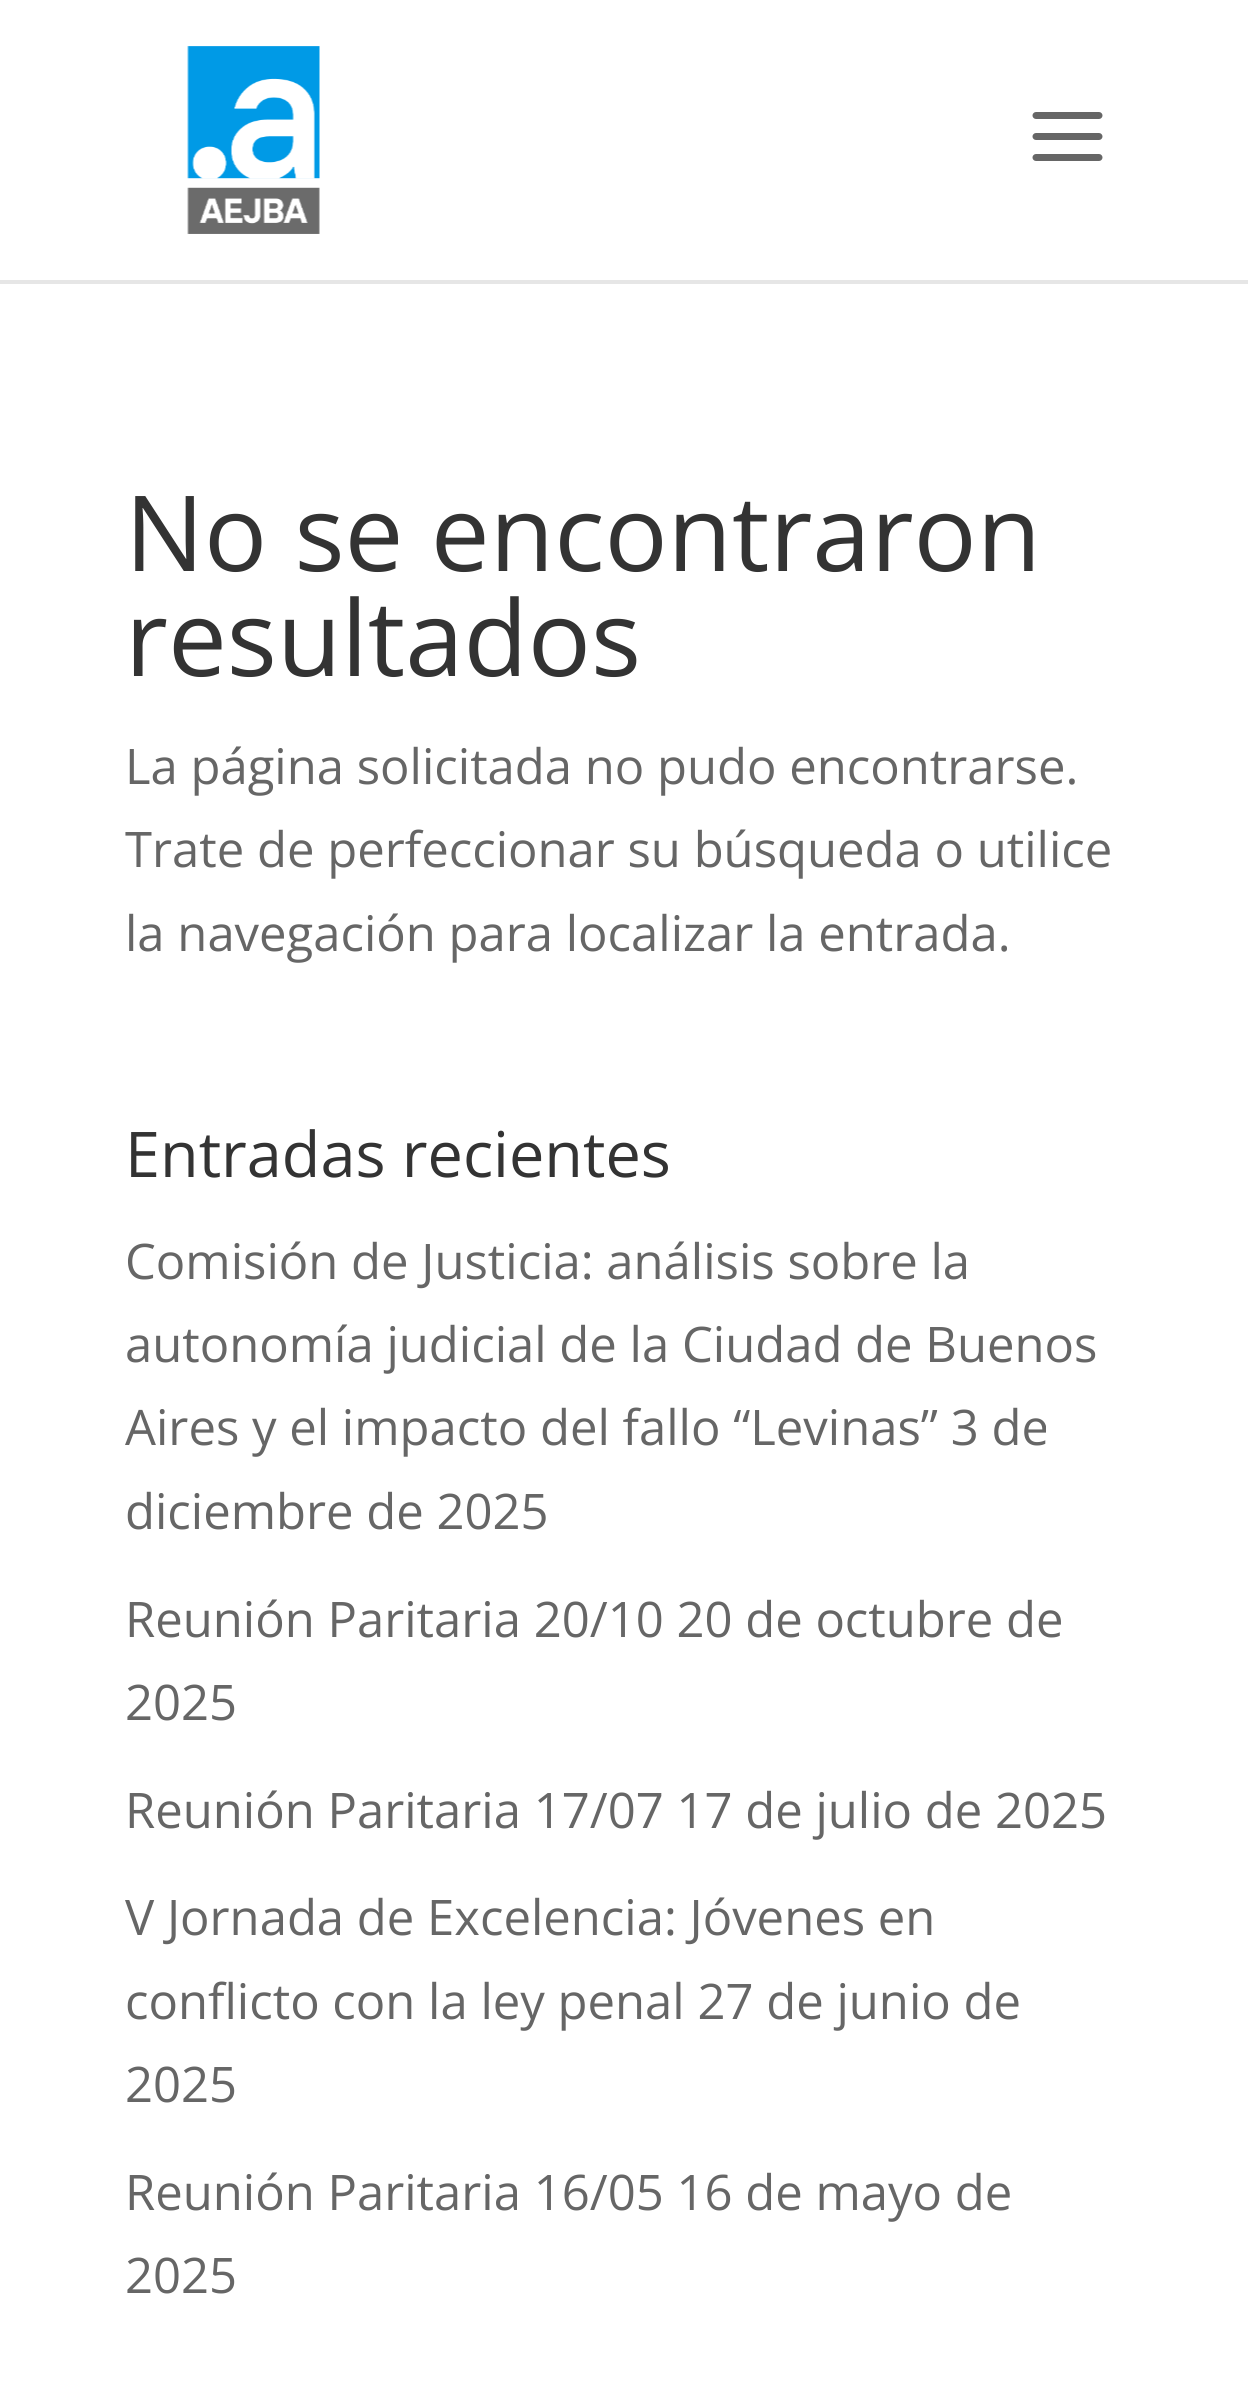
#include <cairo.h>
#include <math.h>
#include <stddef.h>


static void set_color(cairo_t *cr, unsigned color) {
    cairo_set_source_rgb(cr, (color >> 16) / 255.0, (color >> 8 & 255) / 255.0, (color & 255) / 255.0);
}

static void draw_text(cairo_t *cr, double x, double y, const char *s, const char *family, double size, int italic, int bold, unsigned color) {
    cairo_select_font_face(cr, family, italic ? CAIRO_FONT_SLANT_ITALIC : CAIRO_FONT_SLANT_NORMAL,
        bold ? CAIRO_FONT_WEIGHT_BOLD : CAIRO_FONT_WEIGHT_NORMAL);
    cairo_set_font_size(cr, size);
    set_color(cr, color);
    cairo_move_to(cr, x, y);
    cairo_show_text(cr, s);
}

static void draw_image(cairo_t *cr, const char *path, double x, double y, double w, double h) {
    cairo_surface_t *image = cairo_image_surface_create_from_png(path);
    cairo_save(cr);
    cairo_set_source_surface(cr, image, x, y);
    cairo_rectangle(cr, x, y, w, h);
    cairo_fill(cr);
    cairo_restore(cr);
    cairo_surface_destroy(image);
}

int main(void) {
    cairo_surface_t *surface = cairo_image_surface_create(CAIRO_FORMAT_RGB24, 1248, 2392);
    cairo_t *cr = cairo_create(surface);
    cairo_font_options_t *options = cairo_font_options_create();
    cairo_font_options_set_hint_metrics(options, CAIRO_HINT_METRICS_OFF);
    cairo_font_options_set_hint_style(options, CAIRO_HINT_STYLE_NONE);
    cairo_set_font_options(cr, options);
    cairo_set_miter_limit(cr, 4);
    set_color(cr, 0xFFFFFF);
    cairo_paint(cr);
    set_color(cr, 0xE6E6E6);
    cairo_new_path(cr);
    cairo_move_to(cr, 0, 280);
    cairo_line_to(cr, 0, 284);
    cairo_line_to(cr, 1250, 284);
    cairo_line_to(cr, 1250, 4);
    cairo_line_to(cr, 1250, 280);
    cairo_close_path(cr);
    cairo_fill(cr);
    draw_image(cr, "assets/img1.png", 187, 46, 133, 188);
    draw_image(cr, "assets/img2.png", 1032, 112, 71, 49);
    draw_text(cr, 125, 571, "No se encontraron", "Open Sans", 105, 0, 0, 0x333333);
    draw_text(cr, 125, 676, "resultados", "Open Sans", 105, 0, 0, 0x333333);
    draw_text(cr, 125, 784, "La página solicitada no pudo encontrarse.", "Open Sans", 49, 0, 0, 0x666666);
    draw_text(cr, 125, 867, "Trate de perfeccionar su búsqueda o utilice", "Open Sans", 49, 0, 0, 0x666666);
    draw_text(cr, 125, 951, "la navegación para localizar la entrada.", "Open Sans", 49, 0, 0, 0x666666);
    draw_text(cr, 125, 1177, "Entradas recientes", "Open Sans", 63, 0, 0, 0x333333);
    draw_text(cr, 125, 1279, "Comisión de Justicia: análisis sobre la", "Open Sans", 49, 0, 0, 0x666666);
    draw_text(cr, 125, 1362, "autonomía judicial de la Ciudad de Buenos", "Open Sans", 49, 0, 0, 0x666666);
    draw_text(cr, 125, 1445, "Aires y el impacto del fallo “Levinas” 3 de", "Open Sans", 49, 0, 0, 0x666666);
    draw_text(cr, 125, 1529, "diciembre de 2025", "Open Sans", 49, 0, 0, 0x666666);
    draw_text(cr, 125, 1637, "Reunión Paritaria 20/10 20 de octubre de", "Open Sans", 49, 0, 0, 0x666666);
    draw_text(cr, 125, 1720, "2025", "Open Sans", 49, 0, 0, 0x666666);
    draw_text(cr, 125, 1828, "Reunión Paritaria 17/07 17 de julio de 2025", "Open Sans", 49, 0, 0, 0x666666);
    draw_text(cr, 125, 1935, "V Jornada de Excelencia: Jóvenes en", "Open Sans", 49, 0, 0, 0x666666);
    draw_text(cr, 125, 2019, "conflicto con la ley penal 27 de junio de", "Open Sans", 49, 0, 0, 0x666666);
    draw_text(cr, 125, 2102, "2025", "Open Sans", 49, 0, 0, 0x666666);
    draw_text(cr, 125, 2210, "Reunión Paritaria 16/05 16 de mayo de", "Open Sans", 49, 0, 0, 0x666666);
    draw_text(cr, 125, 2293, "2025", "Open Sans", 49, 0, 0, 0x666666);
    cairo_surface_write_to_png(surface, "output.png");
    cairo_font_options_destroy(options);
    cairo_destroy(cr);
    cairo_surface_destroy(surface);
    return 0;
}
